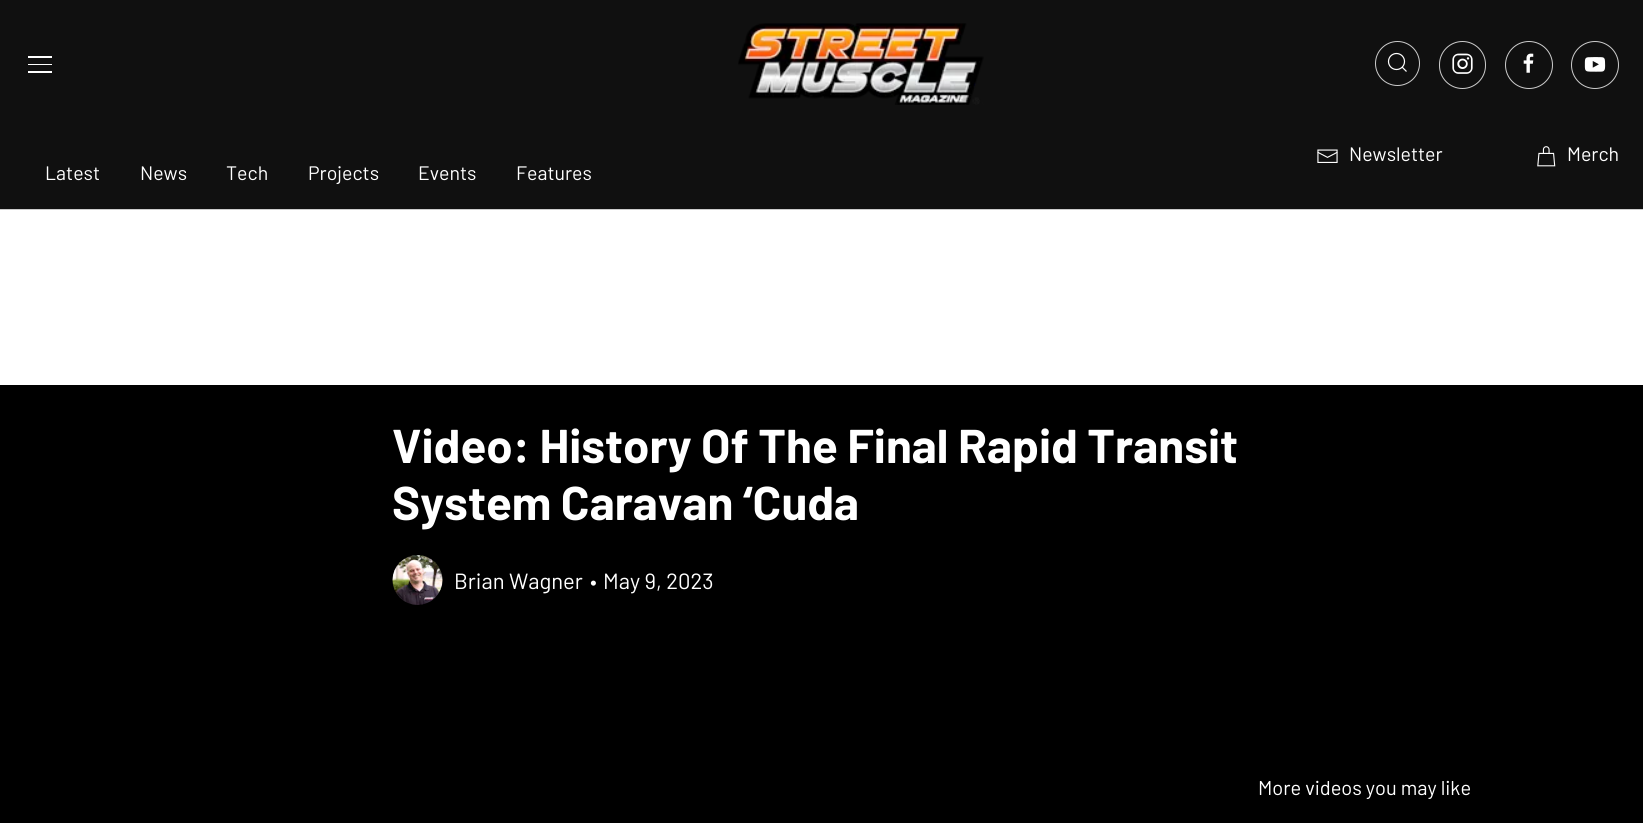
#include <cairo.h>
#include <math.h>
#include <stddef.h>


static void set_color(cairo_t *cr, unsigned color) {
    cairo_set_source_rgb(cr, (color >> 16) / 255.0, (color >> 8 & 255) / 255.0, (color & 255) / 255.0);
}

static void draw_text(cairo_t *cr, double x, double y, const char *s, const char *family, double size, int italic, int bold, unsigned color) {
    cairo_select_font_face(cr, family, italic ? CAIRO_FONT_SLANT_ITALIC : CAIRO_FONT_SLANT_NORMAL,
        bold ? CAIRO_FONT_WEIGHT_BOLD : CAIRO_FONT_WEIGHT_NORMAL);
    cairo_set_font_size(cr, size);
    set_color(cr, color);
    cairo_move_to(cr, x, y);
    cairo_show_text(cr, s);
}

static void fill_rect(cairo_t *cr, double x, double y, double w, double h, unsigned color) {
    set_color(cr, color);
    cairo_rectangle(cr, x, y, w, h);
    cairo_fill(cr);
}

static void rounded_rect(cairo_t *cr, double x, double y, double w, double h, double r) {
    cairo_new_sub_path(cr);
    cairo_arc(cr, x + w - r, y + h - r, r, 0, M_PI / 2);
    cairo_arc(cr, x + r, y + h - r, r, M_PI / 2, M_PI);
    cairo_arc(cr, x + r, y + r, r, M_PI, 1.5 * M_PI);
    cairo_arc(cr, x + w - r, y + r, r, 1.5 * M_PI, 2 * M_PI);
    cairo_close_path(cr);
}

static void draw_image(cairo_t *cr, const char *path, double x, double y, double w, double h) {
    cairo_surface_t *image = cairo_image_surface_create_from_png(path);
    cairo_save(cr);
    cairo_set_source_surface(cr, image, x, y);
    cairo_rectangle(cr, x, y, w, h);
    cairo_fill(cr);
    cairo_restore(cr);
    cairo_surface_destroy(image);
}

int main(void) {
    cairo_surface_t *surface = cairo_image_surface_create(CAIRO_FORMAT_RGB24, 1643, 823);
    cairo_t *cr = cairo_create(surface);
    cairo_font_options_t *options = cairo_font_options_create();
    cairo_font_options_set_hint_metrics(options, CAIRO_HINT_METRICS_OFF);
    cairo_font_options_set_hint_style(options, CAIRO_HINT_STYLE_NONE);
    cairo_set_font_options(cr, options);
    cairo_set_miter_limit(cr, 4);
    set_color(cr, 0xFFFFFF);
    cairo_paint(cr);
    fill_rect(cr, 0, 0, 1643, 209, 0x101010);
    fill_rect(cr, 0, 209, 1643, 1, 0xCCCCCC);
    cairo_arc(cr, 1397.5, 63.5, 22, 0, 2 * M_PI);
    cairo_set_line_width(cr, 1);
    cairo_stroke(cr);
    cairo_arc(cr, 1396.5, 61.5, 8, 0, 2 * M_PI);
    set_color(cr, 0xFFFFFF);
    cairo_set_line_width(cr, 1.2);
    cairo_stroke(cr);
    cairo_new_path(cr);
    cairo_move_to(cr, 1402, 67);
    cairo_line_to(cr, 1406.5, 71.5);
    cairo_close_path(cr);
    cairo_stroke(cr);
    rounded_rect(cr, 1439.5, 41.5, 46, 47, 23);
    set_color(cr, 0xCCCCCC);
    cairo_set_line_width(cr, 1);
    cairo_stroke(cr);
    draw_image(cr, "assets/img1.png", 1452, 53, 21, 21);
    cairo_arc(cr, 1529, 65, 23.5, 0, 2 * M_PI);
    cairo_stroke(cr);
    draw_image(cr, "assets/img2.png", 1523, 53, 11, 20);
    cairo_arc(cr, 1595, 65, 23.5, 0, 2 * M_PI);
    cairo_stroke(cr);
    draw_image(cr, "assets/img3.png", 1584, 57, 22, 15);
    draw_image(cr, "assets/img4.png", 1317, 149, 21, 14);
    draw_text(cr, 1349, 161, "Newsletter", "Barlow", 19.5, 0, 0, 0xFFFFFF);
    draw_image(cr, "assets/img5.png", 1537, 146, 19, 21);
    draw_text(cr, 1567, 161, "Merch", "Barlow", 19.5, 0, 0, 0xFFFFFF);
    fill_rect(cr, 28, 56, 24, 2, 0xFFFFFF);
    fill_rect(cr, 28, 64, 24, 1, 0xFFFFFF);
    fill_rect(cr, 28, 71, 24, 2, 0xFFFFFF);
    draw_image(cr, "assets/img6.png", 738, 23, 246, 82);
    draw_text(cr, 45, 180, "Latest", "Barlow", 19.5, 0, 0, 0xFFFFFF);
    draw_text(cr, 140, 180, "News", "Barlow", 19.5, 0, 0, 0xFFFFFF);
    draw_text(cr, 226, 180, "Tech", "Barlow", 19.5, 0, 0, 0xFFFFFF);
    draw_text(cr, 308, 180, "Projects", "Barlow", 19.5, 0, 0, 0xFFFFFF);
    draw_text(cr, 418, 180, "Events", "Barlow", 19.5, 0, 0, 0xFFFFFF);
    draw_text(cr, 516, 180, "Features", "Barlow", 19.5, 0, 0, 0xFFFFFF);
    fill_rect(cr, 0, 385, 1643, 438, 0x000000);
    draw_text(cr, 392, 463, "Video: History Of The Final Rapid Transit", "Barlow", 47.4, 0, 1, 0xFFFFFF);
    draw_text(cr, 392, 520, "System Caravan ‘Cuda", "Barlow", 47.4, 0, 1, 0xFFFFFF);
    draw_image(cr, "assets/img7.png", 392, 555, 51, 50);
    draw_text(cr, 454, 589, "Brian Wagner", "Barlow", 22, 0, 0, 0xFFFFFF);
    draw_text(cr, 590, 589, "•", "Barlow", 22, 0, 0, 0xFFFFFF);
    draw_text(cr, 603, 589, "May 9, 2023", "Barlow", 22, 0, 0, 0xFFFFFF);
    draw_text(cr, 1258, 795, "More videos you may like", "Barlow", 20, 0, 0, 0xFFFFFF);
    cairo_surface_write_to_png(surface, "output.png");
    cairo_font_options_destroy(options);
    cairo_destroy(cr);
    cairo_surface_destroy(surface);
    return 0;
}
